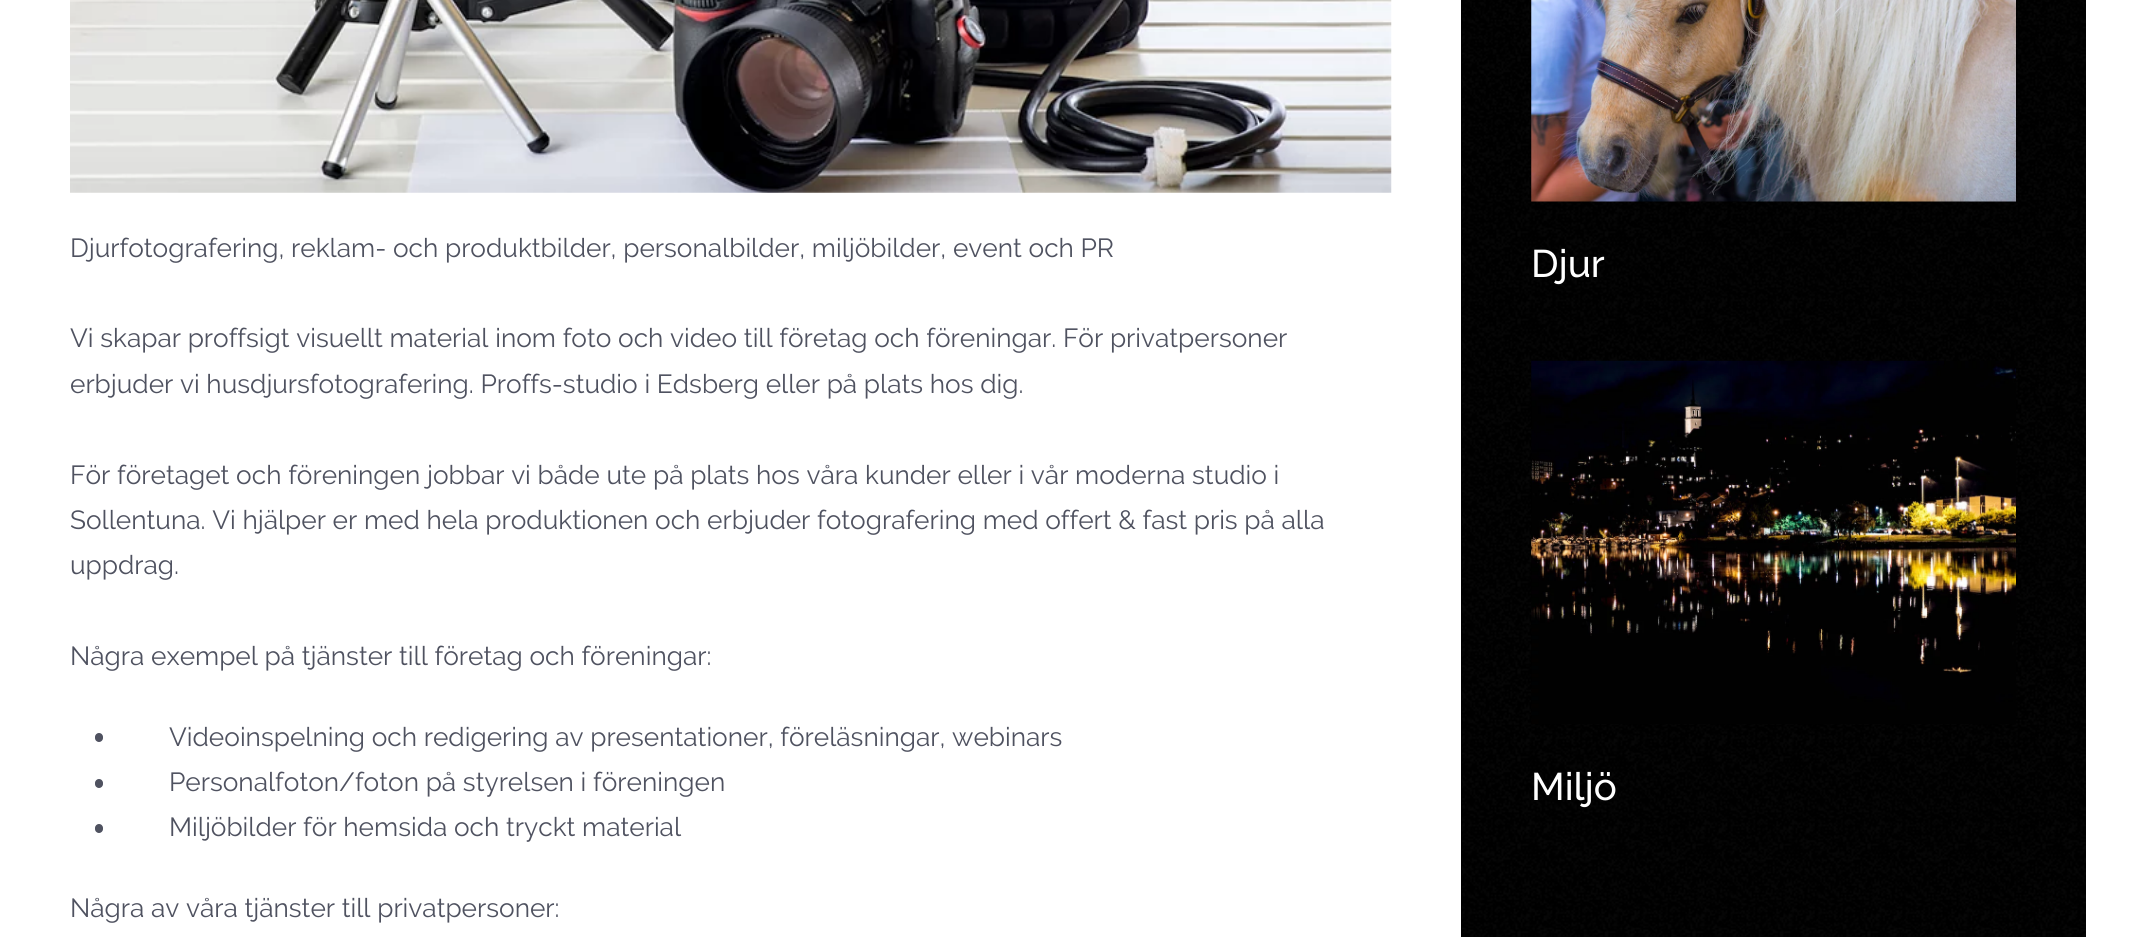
#include <cairo.h>
#include <math.h>
#include <stddef.h>


static void set_color(cairo_t *cr, unsigned color) {
    cairo_set_source_rgb(cr, (color >> 16) / 255.0, (color >> 8 & 255) / 255.0, (color & 255) / 255.0);
}

static void draw_text(cairo_t *cr, double x, double y, const char *s, const char *family, double size, int italic, int bold, unsigned color) {
    cairo_select_font_face(cr, family, italic ? CAIRO_FONT_SLANT_ITALIC : CAIRO_FONT_SLANT_NORMAL,
        bold ? CAIRO_FONT_WEIGHT_BOLD : CAIRO_FONT_WEIGHT_NORMAL);
    cairo_set_font_size(cr, size);
    set_color(cr, color);
    cairo_move_to(cr, x, y);
    cairo_show_text(cr, s);
}

static void fill_rect(cairo_t *cr, double x, double y, double w, double h, unsigned color) {
    set_color(cr, color);
    cairo_rectangle(cr, x, y, w, h);
    cairo_fill(cr);
}

static void rounded_rect(cairo_t *cr, double x, double y, double w, double h, double r) {
    cairo_new_sub_path(cr);
    cairo_arc(cr, x + w - r, y + h - r, r, 0, M_PI / 2);
    cairo_arc(cr, x + r, y + h - r, r, M_PI / 2, M_PI);
    cairo_arc(cr, x + r, y + r, r, M_PI, 1.5 * M_PI);
    cairo_arc(cr, x + w - r, y + r, r, 1.5 * M_PI, 2 * M_PI);
    cairo_close_path(cr);
}

static void draw_image(cairo_t *cr, const char *path, double x, double y, double w, double h) {
    cairo_surface_t *image = cairo_image_surface_create_from_png(path);
    cairo_save(cr);
    cairo_set_source_surface(cr, image, x, y);
    cairo_rectangle(cr, x, y, w, h);
    cairo_fill(cr);
    cairo_restore(cr);
    cairo_surface_destroy(image);
}

int main(void) {
    cairo_surface_t *surface = cairo_image_surface_create(CAIRO_FORMAT_RGB24, 2155, 937);
    cairo_t *cr = cairo_create(surface);
    cairo_font_options_t *options = cairo_font_options_create();
    cairo_font_options_set_hint_metrics(options, CAIRO_HINT_METRICS_OFF);
    cairo_font_options_set_hint_style(options, CAIRO_HINT_STYLE_NONE);
    cairo_set_font_options(cr, options);
    cairo_set_miter_limit(cr, 4);
    set_color(cr, 0xFFFFFF);
    cairo_paint(cr);
    draw_image(cr, "assets/img1.png", 70, 0, 1322, 193);
    draw_text(cr, 70, 257, "Djurfotografering, reklam- och produktbilder, personalbilder, miljöbilder, event och PR", "Raleway", 26.25, 0, 0, 0x4F5260);
    draw_text(cr, 70, 347, "Vi skapar proffsigt visuellt material inom foto och video till företag och föreningar. För privatpersoner", "Raleway", 26.25, 0, 0, 0x4F5260);
    draw_text(cr, 70, 393, "erbjuder vi husdjursfotografering. Proffs-studio i Edsberg eller på plats hos dig.", "Raleway", 26.25, 0, 0, 0x4F5260);
    draw_text(cr, 70, 484, "För företaget och föreningen jobbar vi både ute på plats hos våra kunder eller i vår moderna studio i", "Raleway", 26.25, 0, 0, 0x4F5260);
    draw_text(cr, 70, 529, "Sollentuna. Vi hjälper er med hela produktionen och erbjuder fotografering med offert & fast pris på alla", "Raleway", 26.25, 0, 0, 0x4F5260);
    draw_text(cr, 70, 574, "uppdrag.", "Raleway", 26.25, 0, 0, 0x4F5260);
    draw_text(cr, 70, 665, "Några exempel på tjänster till företag och föreningar:", "Raleway", 26.25, 0, 0, 0x4F5260);
    rounded_rect(cr, 95, 733, 8, 9, 4);
    cairo_fill(cr);
    draw_text(cr, 169, 746, "Videoinspelning och redigering av presentationer, föreläsningar, webinars", "Raleway", 26.25, 0, 0, 0x4F5260);
    rounded_rect(cr, 95, 779, 8, 9, 4);
    cairo_fill(cr);
    draw_text(cr, 169, 791, "Personalfoton/foton på styrelsen i föreningen", "Raleway", 26.25, 0, 0, 0x4F5260);
    rounded_rect(cr, 95, 824, 8, 9, 4);
    cairo_fill(cr);
    draw_text(cr, 169, 836, "Miljöbilder för hemsida och tryckt material", "Raleway", 26.25, 0, 0, 0x4F5260);
    draw_text(cr, 70, 917, "Några av våra tjänster till privatpersoner:", "Raleway", 26.25, 0, 0, 0x4F5260);
    fill_rect(cr, 1461, 0, 625, 937, 0x000000);
    draw_image(cr, "assets/img2.png", 1462, 0, 624, 937);
    draw_image(cr, "assets/img3.png", 1531, 0, 485, 202);
    draw_text(cr, 1531, 277, "Djur", "Raleway Medium", 38.5, 0, 0, 0xFFFFFF);
    draw_image(cr, "assets/img4.png", 1531, 360, 485, 364);
    draw_text(cr, 1531, 800, "Miljö", "Raleway Medium", 38.5, 0, 0, 0xFFFFFF);
    cairo_surface_write_to_png(surface, "output.png");
    cairo_font_options_destroy(options);
    cairo_destroy(cr);
    cairo_surface_destroy(surface);
    return 0;
}
